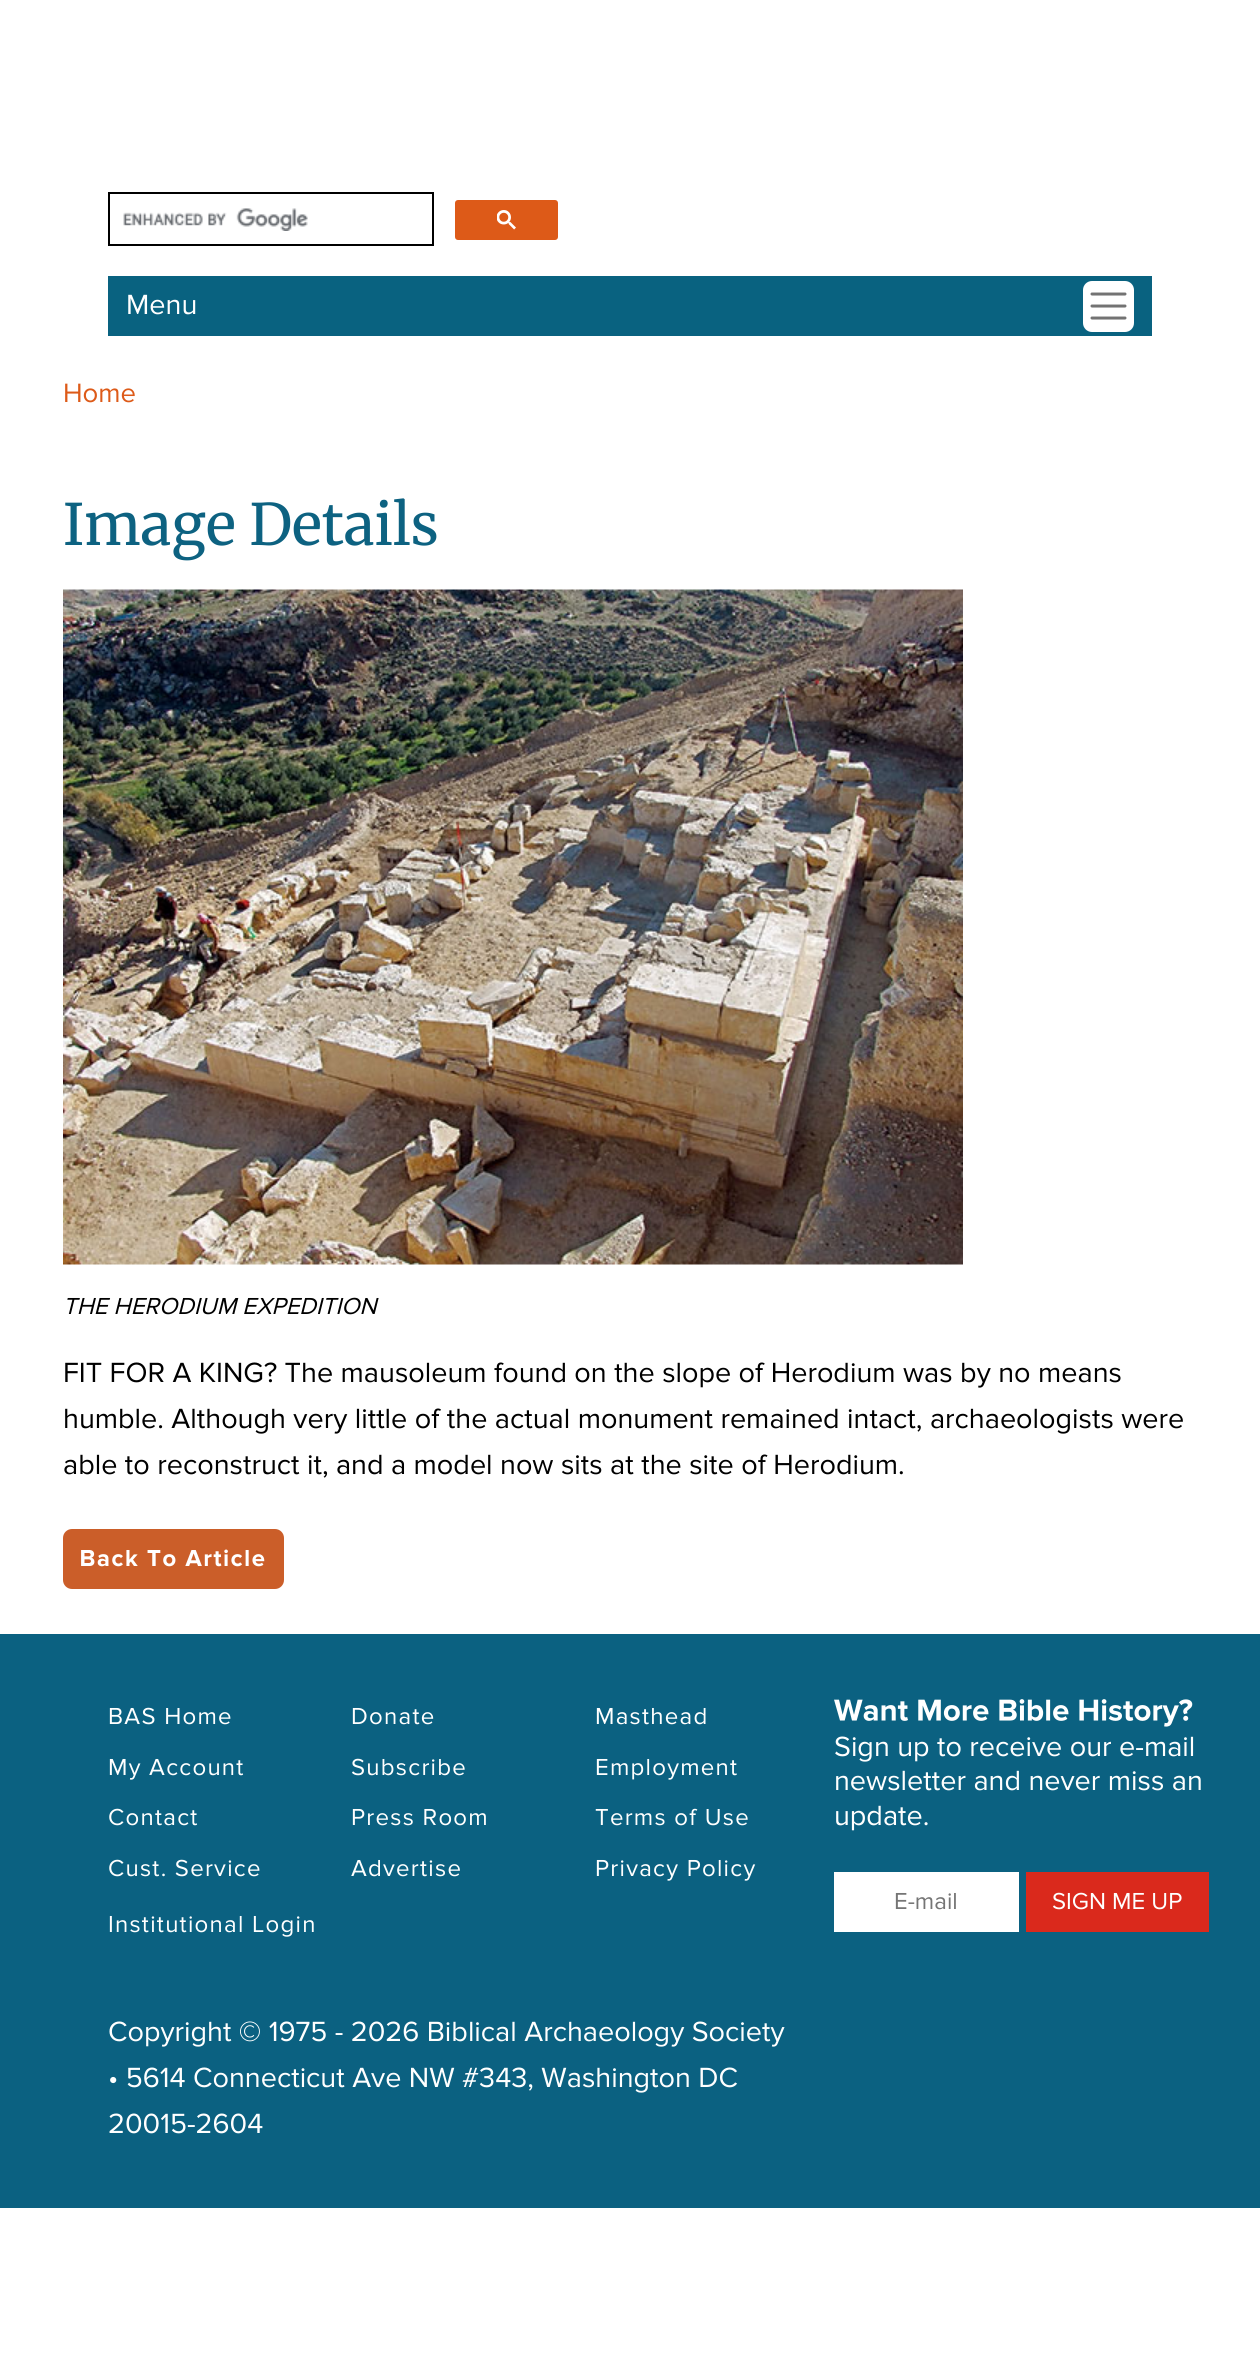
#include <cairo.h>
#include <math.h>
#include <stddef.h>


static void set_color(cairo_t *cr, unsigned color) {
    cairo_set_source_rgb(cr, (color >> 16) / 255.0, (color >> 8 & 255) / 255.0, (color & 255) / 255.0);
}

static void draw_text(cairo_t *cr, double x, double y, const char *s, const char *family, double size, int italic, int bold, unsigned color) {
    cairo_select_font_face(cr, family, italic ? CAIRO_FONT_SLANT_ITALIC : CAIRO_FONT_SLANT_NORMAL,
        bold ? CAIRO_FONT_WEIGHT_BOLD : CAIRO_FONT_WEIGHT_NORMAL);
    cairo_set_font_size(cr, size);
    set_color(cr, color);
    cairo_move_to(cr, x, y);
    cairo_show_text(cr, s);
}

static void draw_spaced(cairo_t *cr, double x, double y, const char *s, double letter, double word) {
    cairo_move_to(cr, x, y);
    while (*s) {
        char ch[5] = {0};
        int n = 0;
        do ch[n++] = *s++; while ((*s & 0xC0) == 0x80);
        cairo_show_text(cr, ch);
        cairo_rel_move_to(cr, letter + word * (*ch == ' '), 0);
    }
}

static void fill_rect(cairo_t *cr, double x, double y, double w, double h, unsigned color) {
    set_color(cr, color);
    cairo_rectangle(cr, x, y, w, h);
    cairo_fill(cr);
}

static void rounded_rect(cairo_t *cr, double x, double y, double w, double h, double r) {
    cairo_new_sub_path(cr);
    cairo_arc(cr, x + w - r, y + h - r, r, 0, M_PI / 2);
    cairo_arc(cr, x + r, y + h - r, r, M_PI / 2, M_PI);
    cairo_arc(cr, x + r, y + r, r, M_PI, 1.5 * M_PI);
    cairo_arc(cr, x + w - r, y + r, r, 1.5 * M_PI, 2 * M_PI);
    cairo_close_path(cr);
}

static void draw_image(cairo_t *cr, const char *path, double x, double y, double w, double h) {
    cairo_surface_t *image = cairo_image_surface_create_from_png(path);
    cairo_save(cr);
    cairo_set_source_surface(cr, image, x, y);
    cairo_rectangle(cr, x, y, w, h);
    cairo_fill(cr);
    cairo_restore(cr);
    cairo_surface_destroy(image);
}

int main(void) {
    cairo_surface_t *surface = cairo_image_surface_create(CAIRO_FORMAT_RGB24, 1260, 2378);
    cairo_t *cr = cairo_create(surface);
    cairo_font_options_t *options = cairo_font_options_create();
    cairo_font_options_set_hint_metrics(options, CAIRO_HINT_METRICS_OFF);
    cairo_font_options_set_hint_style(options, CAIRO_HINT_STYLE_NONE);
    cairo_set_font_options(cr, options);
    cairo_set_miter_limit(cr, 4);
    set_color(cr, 0xFFFFFF);
    cairo_paint(cr);
    cairo_rectangle(cr, 109, 193, 324, 52);
    set_color(cr, 0x000000);
    cairo_stroke(cr);
    draw_image(cr, "assets/img1.png", 123, 208, 185, 23);
    set_color(cr, 0xDD5A18);
    rounded_rect(cr, 456, 201, 101, 38, 2);
    cairo_fill_preserve(cr);
    cairo_stroke(cr);
    draw_image(cr, "assets/img2.png", 497, 210, 19, 20);
    fill_rect(cr, 108, 276, 1044, 60, 0x096280);
    draw_text(cr, 126, 314, "Menu", "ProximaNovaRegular", 28.8, 0, 0, 0xFFFFFF);
    rounded_rect(cr, 1083, 281, 51, 51, 9);
    cairo_fill(cr);
    cairo_new_path(cr);
    cairo_move_to(cr, 1092, 294);
    cairo_line_to(cr, 1125, 294);
    cairo_move_to(cr, 1092, 306);
    cairo_line_to(cr, 1125, 306);
    cairo_move_to(cr, 1092, 318);
    cairo_line_to(cr, 1125, 318);
    set_color(cr, 0x737373);
    cairo_set_line_width(cr, 3);
    cairo_set_line_cap(cr, CAIRO_LINE_CAP_ROUND);
    cairo_stroke(cr);
    draw_text(cr, 63, 402, "Home", "ProximaNovaRegular", 27.5, 0, 0, 0xDD5A18);
    draw_text(cr, 63, 545, "Image Details", "Merriweather", 57, 0, 0, 0x0D6281);
    draw_image(cr, "assets/img3.png", 63, 589, 900, 676);
    draw_text(cr, 63, 1314, "THE HERODIUM EXPEDITION", "ProximaNovaRegular", 24, 1, 0, 0x000000);
    draw_text(cr, 63, 1382, "FIT FOR A KING? The mausoleum found on the slope of Herodium was by no means", "ProximaNovaRegular", 28.8, 0, 0, 0x000000);
    draw_text(cr, 63, 1428, "humble. Although very little of the actual monument remained intact, archaeologists were", "ProximaNovaRegular", 28.8, 0, 0, 0x000000);
    draw_text(cr, 63, 1474, "able to reconstruct it, and a model now sits at the site of Herodium.", "ProximaNovaRegular", 28.8, 0, 0, 0x000000);
    set_color(cr, 0xCB5E29);
    rounded_rect(cr, 64, 1530, 219, 58, 8);
    cairo_fill_preserve(cr);
    cairo_set_line_width(cr, 2);
    cairo_set_line_cap(cr, CAIRO_LINE_CAP_BUTT);
    cairo_stroke(cr);
    draw_image(cr, "assets/img4.png", 81, 1549, 184, 18);
    fill_rect(cr, 0, 1634, 1260, 574, 0x0B6181);
    cairo_set_font_size(cr, 24);
    set_color(cr, 0xFFFFFF);
    draw_spaced(cr, 108, 1724, "BAS Home", 1.25, 0);
    draw_spaced(cr, 351, 1724, "Donate", 1.25, 0);
    draw_spaced(cr, 595, 1724, "Masthead", 1.25, 0);
    draw_spaced(cr, 108, 1775, "My Account", 1.25, 0);
    draw_spaced(cr, 351, 1775, "Subscribe", 1.25, 0);
    draw_spaced(cr, 595, 1775, "Employment", 1.25, 0);
    draw_spaced(cr, 108, 1825, "Contact", 1.25, 0);
    draw_spaced(cr, 351, 1825, "Press Room", 1.25, 0);
    draw_spaced(cr, 595, 1825, "Terms of Use", 1.25, 0);
    draw_spaced(cr, 108, 1876, "Cust. Service", 1.25, 0);
    draw_spaced(cr, 351, 1876, "Advertise", 1.25, 0);
    draw_spaced(cr, 595, 1876, "Privacy Policy", 1.25, 0);
    draw_spaced(cr, 108, 1932, "Institutional Login", 1.25, 0);
    draw_text(cr, 108, 2041, "Copyright © 1975 - 2026 Biblical Archaeology Society", "ProximaNovaRegular", 28.8, 0, 0, 0xFFFFFF);
    draw_text(cr, 108, 2087, "• 5614 Connecticut Ave NW #343, Washington DC", "ProximaNovaRegular", 28.8, 0, 0, 0xFFFFFF);
    draw_text(cr, 108, 2133, "20015-2604", "ProximaNovaRegular", 28.8, 0, 0, 0xFFFFFF);
    draw_image(cr, "assets/img5.png", 834, 1699, 359, 28);
    draw_text(cr, 834, 1756, "Sign up to receive our e-mail", "ProximaNovaRegular", 28.8, 0, 0, 0xFFFFFF);
    draw_text(cr, 834, 1790, "newsletter and never miss an", "ProximaNovaRegular", 28.8, 0, 0, 0xFFFFFF);
    draw_text(cr, 834, 1825, "update.", "ProximaNovaRegular", 28.8, 0, 0, 0xFFFFFF);
    fill_rect(cr, 834, 1872, 185, 60, 0xFFFFFF);
    draw_text(cr, 894, 1909, "E-mail", "ProximaNovaRegular", 24, 0, 0, 0x757575);
    fill_rect(cr, 1026, 1872, 183, 60, 0xDA291C);
    draw_text(cr, 1052, 1909, "SIGN ME UP", "ProximaNovaRegular", 24, 0, 0, 0xFFFFFF);
    cairo_surface_write_to_png(surface, "output.png");
    cairo_font_options_destroy(options);
    cairo_destroy(cr);
    cairo_surface_destroy(surface);
    return 0;
}
